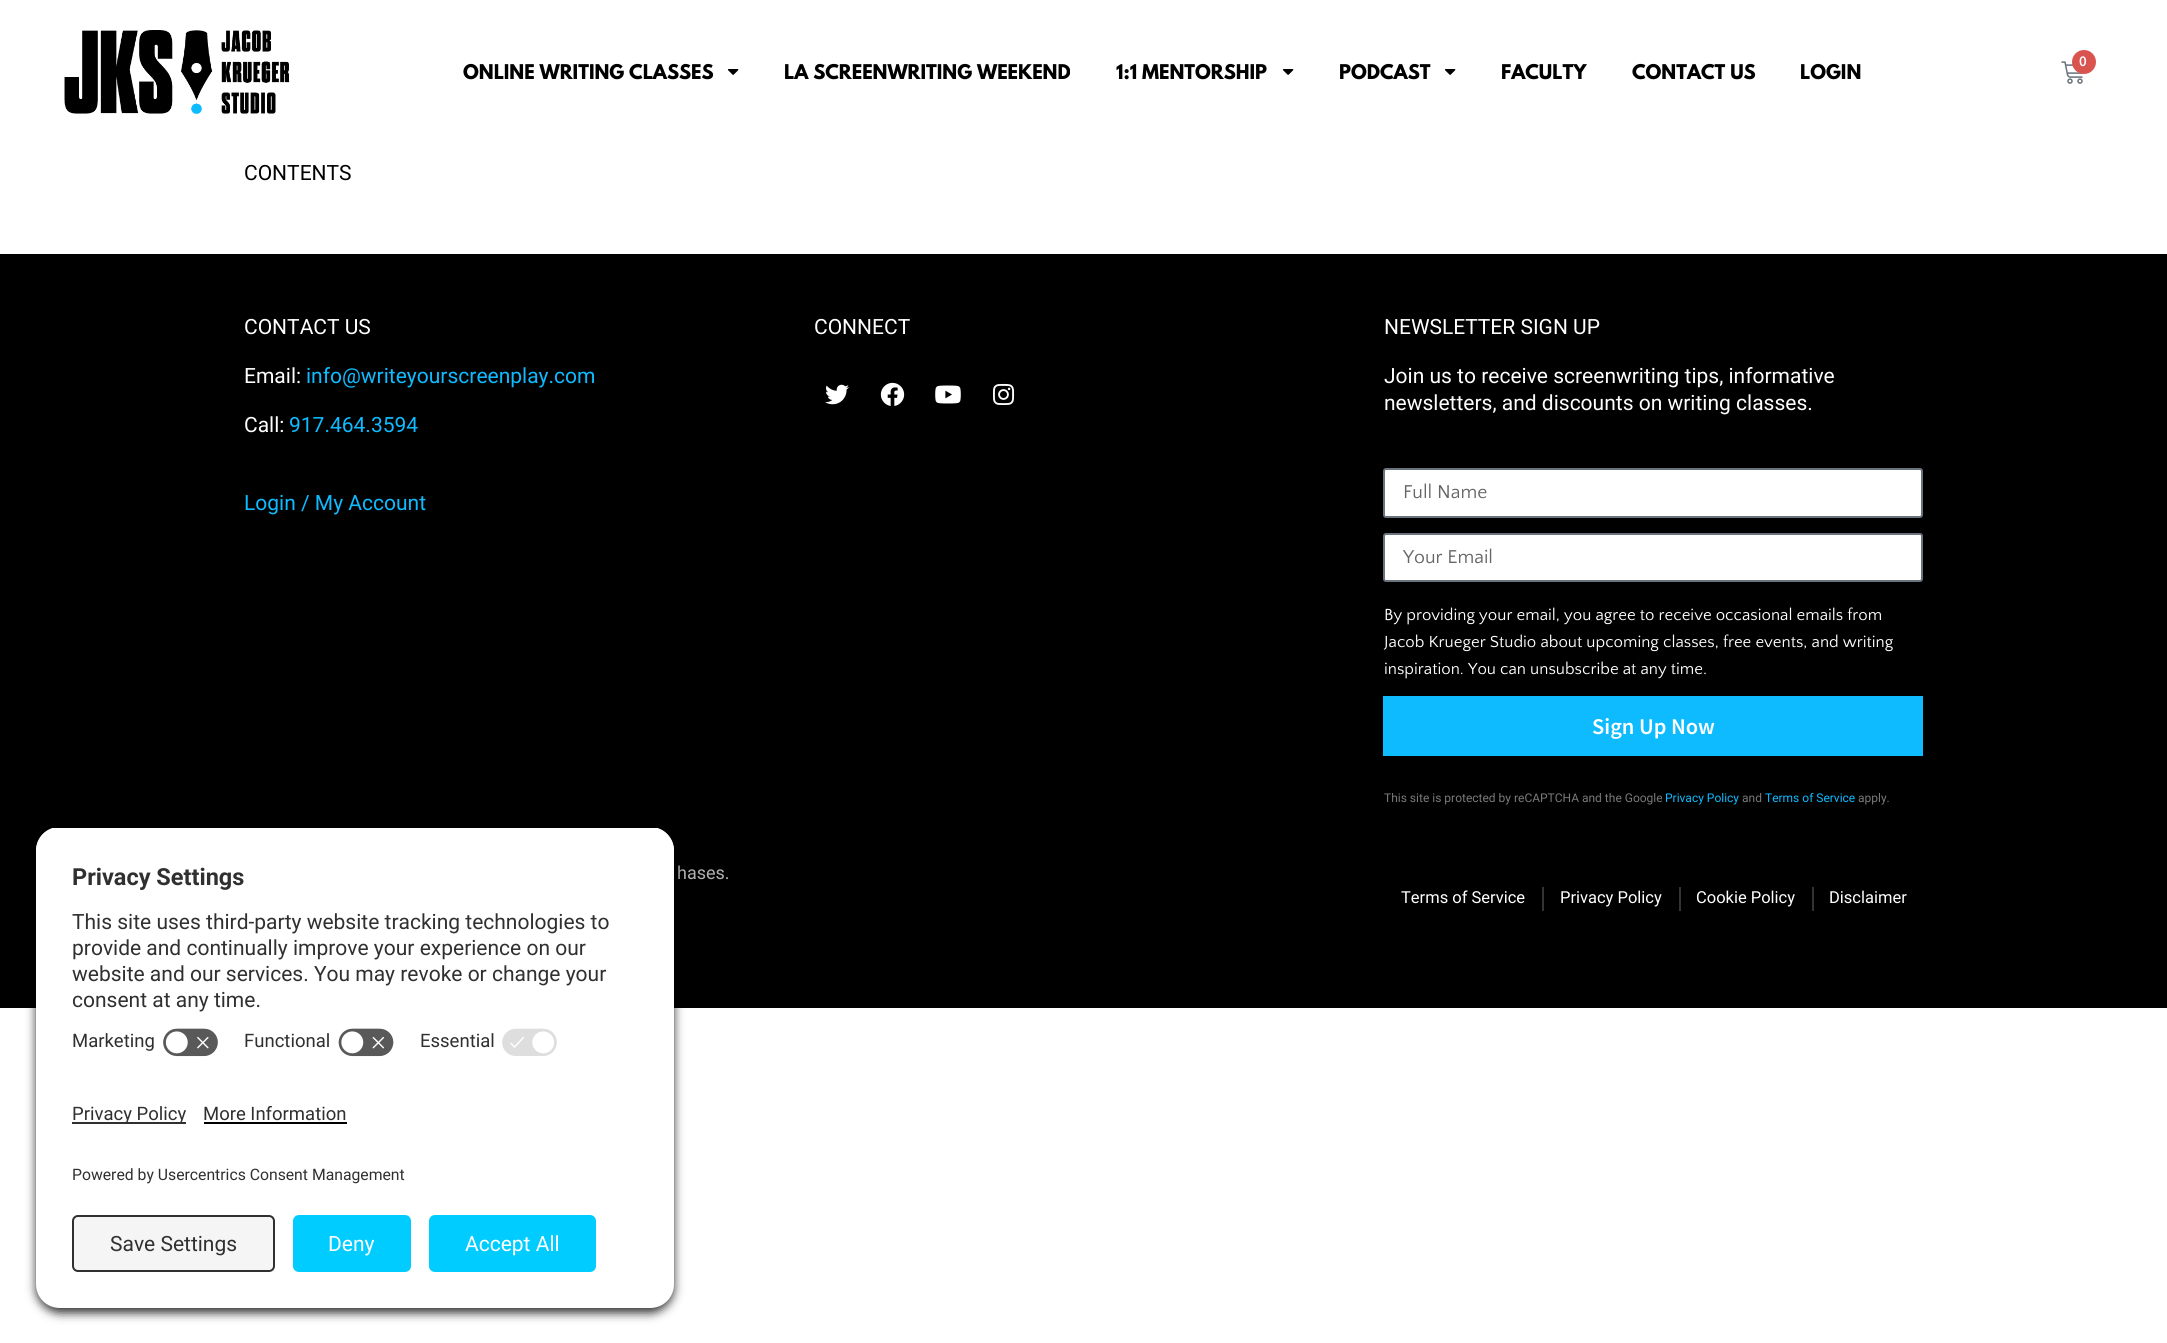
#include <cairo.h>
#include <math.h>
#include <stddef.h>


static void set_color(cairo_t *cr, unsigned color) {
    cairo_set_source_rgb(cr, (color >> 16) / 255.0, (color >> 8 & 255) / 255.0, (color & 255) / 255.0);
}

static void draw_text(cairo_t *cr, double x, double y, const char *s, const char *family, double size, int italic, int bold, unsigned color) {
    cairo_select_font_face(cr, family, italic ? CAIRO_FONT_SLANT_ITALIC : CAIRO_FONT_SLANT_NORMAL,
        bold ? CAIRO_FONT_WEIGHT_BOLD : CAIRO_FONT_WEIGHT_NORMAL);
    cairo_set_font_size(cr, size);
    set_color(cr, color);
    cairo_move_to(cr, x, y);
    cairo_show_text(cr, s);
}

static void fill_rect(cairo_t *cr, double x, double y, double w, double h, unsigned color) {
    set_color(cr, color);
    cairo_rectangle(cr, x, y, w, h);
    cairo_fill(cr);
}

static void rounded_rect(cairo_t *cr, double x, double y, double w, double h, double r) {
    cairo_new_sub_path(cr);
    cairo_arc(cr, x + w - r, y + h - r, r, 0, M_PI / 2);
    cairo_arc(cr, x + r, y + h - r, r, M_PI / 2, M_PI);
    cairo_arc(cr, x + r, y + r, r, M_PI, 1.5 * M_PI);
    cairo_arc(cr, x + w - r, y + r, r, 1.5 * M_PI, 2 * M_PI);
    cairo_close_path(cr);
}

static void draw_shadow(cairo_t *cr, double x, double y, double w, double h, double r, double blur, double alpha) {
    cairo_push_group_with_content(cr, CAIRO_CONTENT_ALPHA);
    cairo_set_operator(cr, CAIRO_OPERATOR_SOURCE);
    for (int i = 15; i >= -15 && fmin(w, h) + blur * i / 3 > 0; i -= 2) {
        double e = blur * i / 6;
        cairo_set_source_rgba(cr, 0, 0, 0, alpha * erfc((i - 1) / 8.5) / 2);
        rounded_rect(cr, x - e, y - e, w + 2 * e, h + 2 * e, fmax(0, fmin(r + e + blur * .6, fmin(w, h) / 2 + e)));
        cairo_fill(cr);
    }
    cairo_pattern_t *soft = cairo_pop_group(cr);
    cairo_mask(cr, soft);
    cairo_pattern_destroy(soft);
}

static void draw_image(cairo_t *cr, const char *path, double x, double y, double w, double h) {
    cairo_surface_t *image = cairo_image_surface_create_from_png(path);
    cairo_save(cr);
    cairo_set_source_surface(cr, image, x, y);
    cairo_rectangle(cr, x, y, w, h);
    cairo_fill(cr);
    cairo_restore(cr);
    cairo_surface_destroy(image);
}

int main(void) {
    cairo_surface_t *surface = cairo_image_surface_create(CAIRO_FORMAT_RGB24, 2167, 1343);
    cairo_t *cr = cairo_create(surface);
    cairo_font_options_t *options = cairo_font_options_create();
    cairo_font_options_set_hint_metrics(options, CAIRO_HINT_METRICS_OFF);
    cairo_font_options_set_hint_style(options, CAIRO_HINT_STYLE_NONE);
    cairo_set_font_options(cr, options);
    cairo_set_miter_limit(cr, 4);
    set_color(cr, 0xFFFFFF);
    cairo_paint(cr);
    draw_image(cr, "assets/img1.png", 64, 30, 226, 84);
    draw_image(cr, "assets/img2.png", 2061, 61, 22, 23);
    set_color(cr, 0xD9534F);
    cairo_arc(cr, 2084, 62, 12, 0, 2 * M_PI);
    cairo_fill(cr);
    draw_text(cr, 2079, 66, "0", "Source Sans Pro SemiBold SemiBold", 15, 0, 0, 0xFFFFFF);
    draw_text(cr, 463, 79, "ONLINE WRITING CLASSES", "League Spartan", 18, 0, 1, 0x000000);
    draw_image(cr, "assets/img3.png", 727, 69, 12, 6);
    draw_text(cr, 784, 79, "LA SCREENWRITING WEEKEND", "League Spartan", 18, 0, 1, 0x000000);
    draw_text(cr, 1116, 79, "1:1 MENTORSHIP", "League Spartan", 18, 0, 1, 0x000000);
    draw_image(cr, "assets/img3.png", 1282, 69, 12, 6);
    draw_text(cr, 1339, 79, "PODCAST", "League Spartan", 18, 0, 1, 0x000000);
    draw_image(cr, "assets/img3.png", 1444, 69, 12, 6);
    draw_text(cr, 1501, 79, "FACULTY", "League Spartan", 18, 0, 1, 0x000000);
    draw_text(cr, 1632, 79, "CONTACT US", "League Spartan", 18, 0, 1, 0x000000);
    draw_text(cr, 1800, 79, "LOGIN", "League Spartan", 18, 0, 1, 0x000000);
    draw_text(cr, 244, 180, "CONTENTS", "Roboto", 21, 0, 0, 0x000000);
    fill_rect(cr, 0, 254, 2167, 754, 0x000000);
    draw_text(cr, 244, 334, "CONTACT US", "Roboto", 21, 0, 0, 0xFFFFFF);
    draw_text(cr, 244, 383, "Email:", "Roboto", 21, 0, 0, 0xFFFFFF);
    draw_text(cr, 306, 383, "info@writeyourscreenplay.com", "Roboto", 21, 0, 0, 0x0EBBFF);
    draw_text(cr, 244, 432, "Call:", "Roboto", 21, 0, 0, 0xFFFFFF);
    draw_text(cr, 289, 432, "917.464.3594", "Roboto", 21, 0, 0, 0x0EBBFF);
    draw_text(cr, 244, 510, "Login / My Account", "Roboto", 21, 0, 0, 0x0EBBFF);
    draw_text(cr, 814, 334, "CONNECT", "Roboto", 21, 0, 0, 0xFFFFFF);
    draw_image(cr, "assets/img4.png", 825, 384, 24, 21);
    draw_image(cr, "assets/img5.png", 880, 382, 25, 24);
    draw_image(cr, "assets/img6.png", 935, 385, 26, 19);
    draw_image(cr, "assets/img7.png", 993, 383, 22, 22);
    draw_text(cr, 1384, 334, "NEWSLETTER SIGN UP", "Roboto", 21, 0, 0, 0xFFFFFF);
    draw_text(cr, 1384, 383, "Join us to receive screenwriting tips, informative", "Roboto", 21, 0, 0, 0xFFFFFF);
    draw_text(cr, 1384, 410, "newsletters, and discounts on writing classes.", "Roboto", 21, 0, 0, 0xFFFFFF);
    rounded_rect(cr, 1384, 469, 538, 48, 2);
    cairo_fill_preserve(cr);
    set_color(cr, 0x69727D);
    cairo_stroke(cr);
    draw_text(cr, 1403, 498, "Full Name", "Quattrocento Sans", 19.5, 0, 0, 0x666666);
    set_color(cr, 0xFFFFFF);
    rounded_rect(cr, 1384, 534, 538, 47, 2);
    cairo_fill_preserve(cr);
    set_color(cr, 0x69727D);
    cairo_stroke(cr);
    draw_text(cr, 1403, 563, "Your Email", "Quattrocento Sans", 19.5, 0, 0, 0x666666);
    draw_text(cr, 1384, 620, "By providing your email, you agree to receive occasional emails from", "Quattrocento Sans", 16.8, 0, 0, 0xFFFFFF);
    draw_text(cr, 1384, 647, "Jacob Krueger Studio about upcoming classes, free events, and writing", "Quattrocento Sans", 16.8, 0, 0, 0xFFFFFF);
    draw_text(cr, 1384, 674, "inspiration. You can unsubscribe at any time.", "Quattrocento Sans", 16.8, 0, 0, 0xFFFFFF);
    fill_rect(cr, 1383, 696, 540, 60, 0x0EBBFF);
    draw_text(cr, 1592, 734, "Sign Up Now", "Source Sans Pro SemiBold SemiBold", 22.5, 0, 0, 0xFFFFFF);
    draw_text(cr, 1384, 802, "This site is protected by reCAPTCHA and the Google", "Roboto", 12, 0, 0, 0x7A7A7A);
    draw_text(cr, 1665, 802, "Privacy Policy", "Roboto", 12, 0, 0, 0x0EBBFF);
    draw_text(cr, 1742, 802, "and", "Roboto", 12, 0, 0, 0x7A7A7A);
    draw_text(cr, 1765, 802, "Terms of Service", "Roboto", 12, 0, 0, 0x0EBBFF);
    draw_text(cr, 1858, 802, "apply.", "Roboto", 12, 0, 0, 0x7A7A7A);
    draw_text(cr, 677, 879, "hases.", "Roboto", 18, 0, 0, 0xB0B0B0);
    draw_text(cr, 1401, 903, "Terms of Service", "Roboto", 16.5, 0, 0, 0xFFFFFF);
    fill_rect(cr, 1542, 887, 2, 24, 0x333333);
    draw_text(cr, 1560, 903, "Privacy Policy", "Roboto", 16.5, 0, 0, 0xFFFFFF);
    fill_rect(cr, 1679, 887, 2, 24, 0x333333);
    draw_text(cr, 1696, 903, "Cookie Policy", "Roboto", 16.5, 0, 0, 0xFFFFFF);
    fill_rect(cr, 1812, 887, 2, 24, 0x333333);
    draw_text(cr, 1829, 903, "Disclaimer", "Roboto", 16.5, 0, 0, 0xFFFFFF);
    set_color(cr, 0x000000);
    draw_shadow(cr, 36, 831, 638, 482, 24, 5, 0.8);
    cairo_save(cr);
    cairo_new_path(cr);
    cairo_move_to(cr, 60, 827);
    cairo_line_to(cr, 650, 827);
    cairo_curve_to(cr, 663.5, 827, 674, 837.5, 674, 851);
    cairo_line_to(cr, 674, 1080);
    cairo_line_to(cr, 36, 1080);
    cairo_line_to(cr, 36, 851);
    cairo_curve_to(cr, 36, 837.5, 46.5, 827, 60, 827);
    cairo_close_path(cr);
    cairo_clip(cr);
    fill_rect(cr, 36, 828, 638, 252, 0xFFFFFF);
    fill_rect(cr, 36, 828, 638, 192, 0xFFFFFF);
    cairo_restore(cr);
    draw_text(cr, 72, 885, "Privacy Settings", "Roboto", 23.5, 0, 1, 0x303030);
    draw_text(cr, 72, 929, "This site uses third-party website tracking technologies to", "Roboto", 21, 0, 0, 0x303030);
    draw_text(cr, 72, 955, "provide and continually improve your experience on our", "Roboto", 21, 0, 0, 0x303030);
    draw_text(cr, 72, 981, "website and our services. You may revoke or change your", "Roboto", 21, 0, 0, 0x303030);
    draw_text(cr, 72, 1007, "consent at any time.", "Roboto", 21, 0, 0, 0x303030);
    draw_text(cr, 72, 1047, "Marketing", "Roboto", 18.5, 0, 0, 0x303030);
    draw_image(cr, "assets/img8.png", 163, 1028, 55, 29);
    draw_text(cr, 244, 1047, "Functional", "Roboto", 18.5, 0, 0, 0x303030);
    draw_image(cr, "assets/img9.png", 338, 1028, 56, 29);
    draw_text(cr, 420, 1047, "Essential", "Roboto", 18.5, 0, 0, 0x303030);
    draw_image(cr, "assets/img10.png", 502, 1028, 55, 28);
    set_color(cr, 0xFFFFFF);
    cairo_new_path(cr);
    cairo_move_to(cr, 36, 1080);
    cairo_line_to(cr, 674, 1080);
    cairo_line_to(cr, 674, 1284);
    cairo_curve_to(cr, 674, 1297.5, 663.5, 1308, 650, 1308);
    cairo_line_to(cr, 60, 1308);
    cairo_curve_to(cr, 46.5, 1308, 36, 1297.5, 36, 1284);
    cairo_close_path(cr);
    cairo_fill(cr);
    fill_rect(cr, 72, 1122, 114, 2, 0x303030);
    draw_text(cr, 72, 1120, "Privacy Policy", "Roboto", 18.5, 0, 0, 0x303030);
    draw_text(cr, 203, 1120, "More Information", "Roboto", 18.5, 0, 0, 0x303030);
    fill_rect(cr, 204, 1122, 143, 2, 0x000000);
    draw_text(cr, 72, 1180, "Powered by Usercentrics Consent Management", "Roboto", 15.75, 0, 0, 0x303030);
    set_color(cr, 0xF5F5F5);
    rounded_rect(cr, 73, 1216, 201, 55, 5);
    cairo_fill_preserve(cr);
    set_color(cr, 0x303030);
    cairo_stroke(cr);
    draw_text(cr, 110, 1251, "Save Settings", "Roboto", 21, 0, 0, 0x303030);
    set_color(cr, 0x00CCFF);
    rounded_rect(cr, 293, 1215, 118, 57, 6);
    cairo_fill(cr);
    draw_text(cr, 328, 1251, "Deny", "Roboto", 21, 0, 0, 0xFFFFFF);
    set_color(cr, 0x00CCFF);
    rounded_rect(cr, 429, 1215, 167, 57, 6);
    cairo_fill(cr);
    draw_text(cr, 465, 1251, "Accept All", "Roboto", 21, 0, 0, 0xFFFFFF);
    cairo_surface_write_to_png(surface, "output.png");
    cairo_font_options_destroy(options);
    cairo_destroy(cr);
    cairo_surface_destroy(surface);
    return 0;
}
